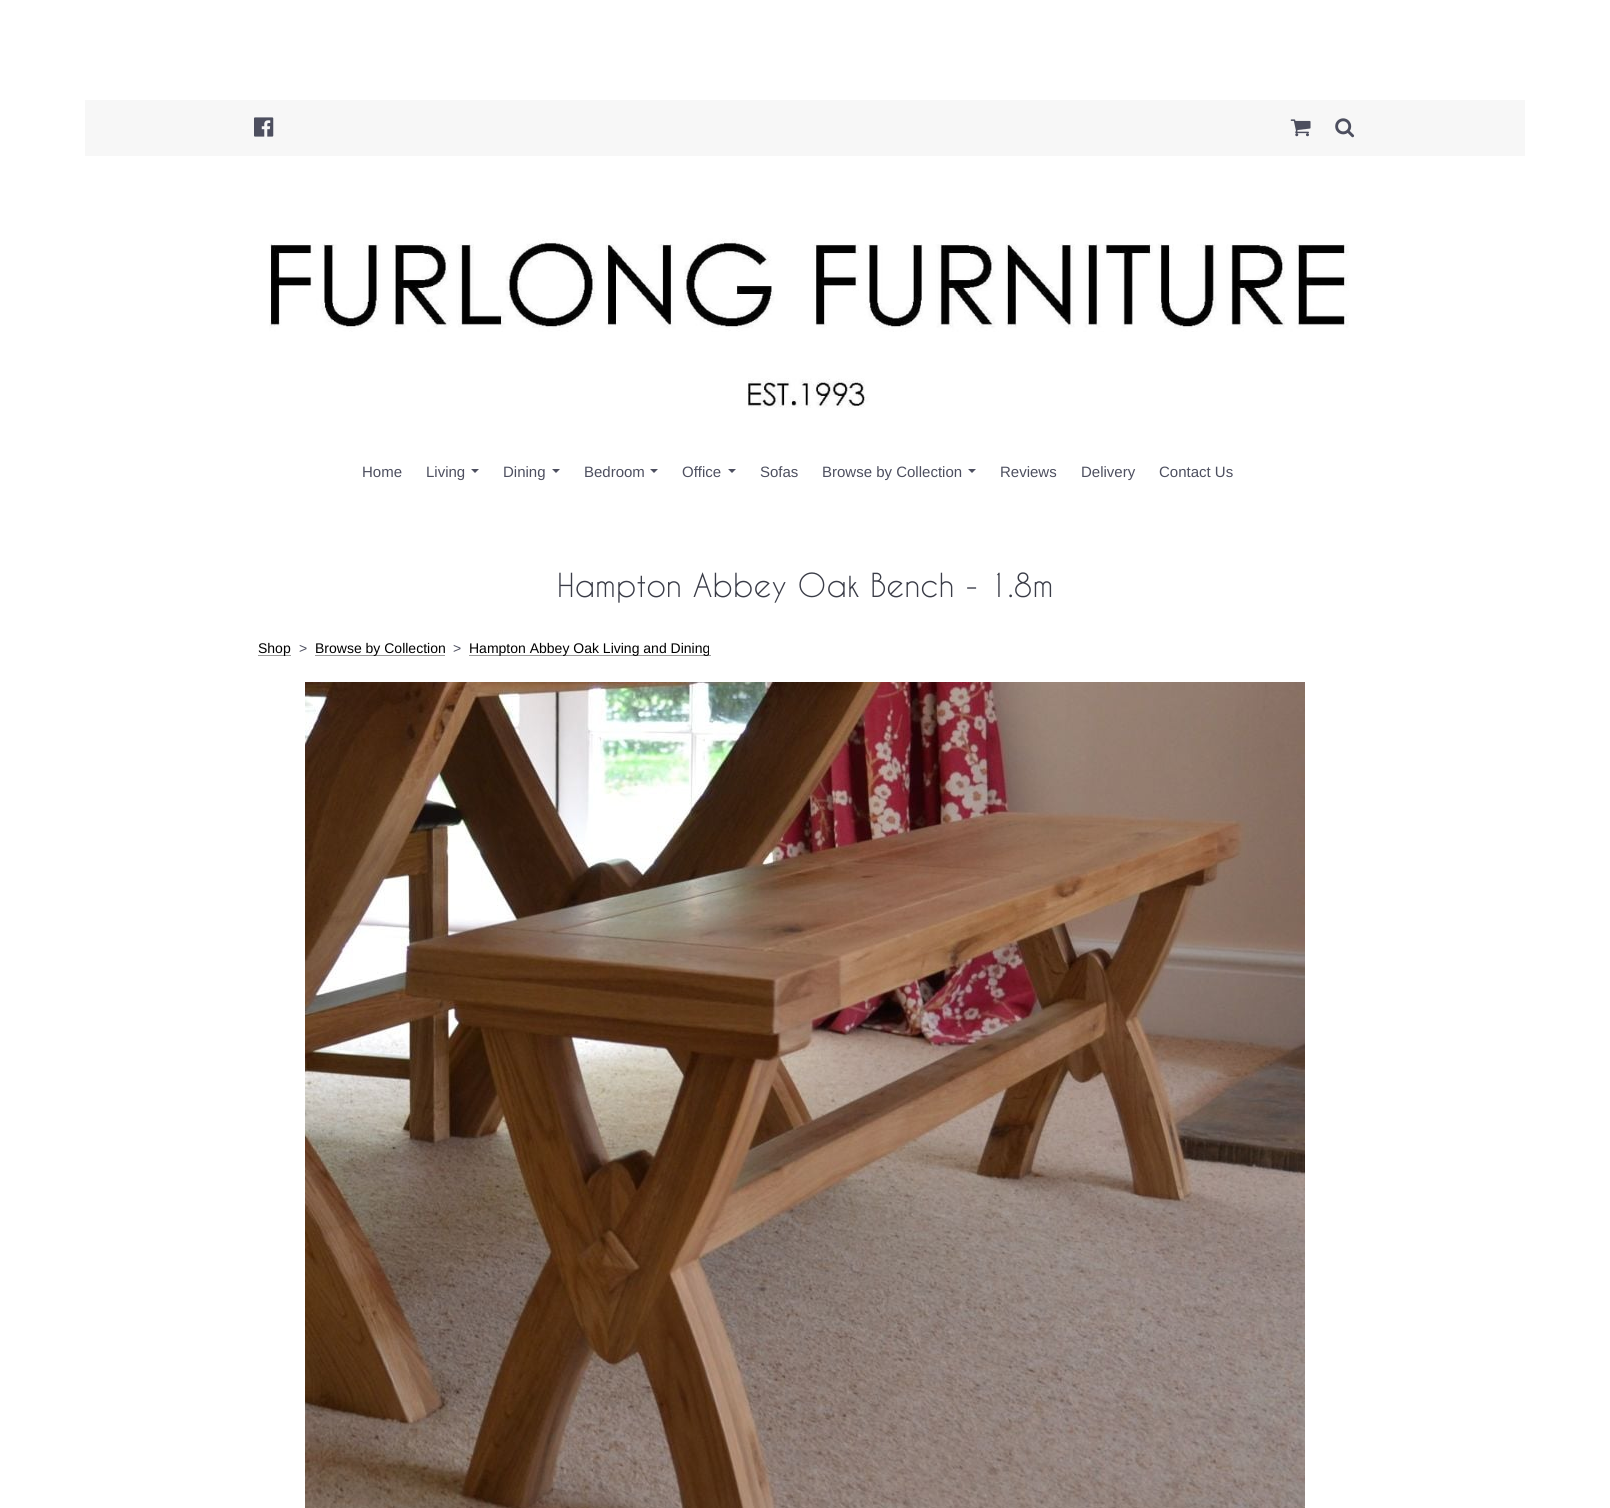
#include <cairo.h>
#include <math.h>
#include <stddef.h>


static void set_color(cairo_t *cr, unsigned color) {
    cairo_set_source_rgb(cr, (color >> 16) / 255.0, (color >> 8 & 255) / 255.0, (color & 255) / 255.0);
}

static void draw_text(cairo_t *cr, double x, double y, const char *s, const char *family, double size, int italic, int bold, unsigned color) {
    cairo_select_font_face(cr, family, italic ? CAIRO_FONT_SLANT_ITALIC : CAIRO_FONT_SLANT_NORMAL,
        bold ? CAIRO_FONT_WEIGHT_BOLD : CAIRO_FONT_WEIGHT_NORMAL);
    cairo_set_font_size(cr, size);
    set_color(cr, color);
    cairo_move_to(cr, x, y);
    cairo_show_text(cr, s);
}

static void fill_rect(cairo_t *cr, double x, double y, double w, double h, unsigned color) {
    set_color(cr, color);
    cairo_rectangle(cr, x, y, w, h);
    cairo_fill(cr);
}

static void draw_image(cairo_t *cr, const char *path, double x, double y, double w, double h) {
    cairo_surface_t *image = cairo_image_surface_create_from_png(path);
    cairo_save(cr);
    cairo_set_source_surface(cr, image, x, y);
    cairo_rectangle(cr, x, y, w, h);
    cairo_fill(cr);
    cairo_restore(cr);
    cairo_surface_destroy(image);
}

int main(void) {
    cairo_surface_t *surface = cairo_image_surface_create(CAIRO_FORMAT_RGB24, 1610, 1508);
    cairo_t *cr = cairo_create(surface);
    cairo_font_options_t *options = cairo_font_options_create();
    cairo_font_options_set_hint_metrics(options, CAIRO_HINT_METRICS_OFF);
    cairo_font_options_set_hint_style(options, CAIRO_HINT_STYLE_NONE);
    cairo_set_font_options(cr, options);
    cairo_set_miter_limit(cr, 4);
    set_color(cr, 0xFFFFFF);
    cairo_paint(cr);
    fill_rect(cr, 85, 100, 1440, 56, 0xF7F7F7);
    draw_image(cr, "assets/img1.png", 254, 117, 20, 20);
    draw_image(cr, "assets/img2.png", 1290, 119, 21, 18);
    draw_image(cr, "assets/img3.png", 1335, 118, 20, 20);
    draw_image(cr, "assets/img4.png", 269, 238, 1080, 170);
    draw_text(cr, 362, 477, "Home", "Liberation Sans", 15, 0, 0, 0x4D4F5F);
    draw_text(cr, 426, 477, "Living", "Liberation Sans", 15, 0, 0, 0x4D4F5F);
    cairo_new_path(cr);
    cairo_move_to(cr, 471, 469);
    cairo_line_to(cr, 479, 469);
    cairo_line_to(cr, 475, 473);
    cairo_close_path(cr);
    cairo_fill(cr);
    draw_text(cr, 503, 477, "Dining", "Liberation Sans", 15, 0, 0, 0x4D4F5F);
    cairo_new_path(cr);
    cairo_move_to(cr, 552, 469);
    cairo_line_to(cr, 560, 469);
    cairo_line_to(cr, 556, 473);
    cairo_close_path(cr);
    cairo_fill(cr);
    draw_text(cr, 584, 477, "Bedroom", "Liberation Sans", 15, 0, 0, 0x4D4F5F);
    cairo_new_path(cr);
    cairo_move_to(cr, 650, 469);
    cairo_line_to(cr, 658, 469);
    cairo_line_to(cr, 654, 473);
    cairo_close_path(cr);
    cairo_fill(cr);
    draw_text(cr, 682, 477, "Office", "Liberation Sans", 15, 0, 0, 0x4D4F5F);
    cairo_new_path(cr);
    cairo_move_to(cr, 728, 469);
    cairo_line_to(cr, 736, 469);
    cairo_line_to(cr, 732, 473);
    cairo_close_path(cr);
    cairo_fill(cr);
    draw_text(cr, 760, 477, "Sofas", "Liberation Sans", 15, 0, 0, 0x4D4F5F);
    draw_text(cr, 822, 477, "Browse by Collection", "Liberation Sans", 15, 0, 0, 0x4D4F5F);
    cairo_new_path(cr);
    cairo_move_to(cr, 968, 469);
    cairo_line_to(cr, 976, 469);
    cairo_line_to(cr, 972, 473);
    cairo_close_path(cr);
    cairo_fill(cr);
    draw_text(cr, 1000, 477, "Reviews", "Liberation Sans", 15, 0, 0, 0x4D4F5F);
    draw_text(cr, 1081, 477, "Delivery", "Liberation Sans", 15, 0, 0, 0x4D4F5F);
    draw_text(cr, 1159, 477, "Contact Us", "Liberation Sans", 15, 0, 0, 0x4D4F5F);
    draw_text(cr, 557, 597, "Hampton Abbey Oak Bench - 1.8m", "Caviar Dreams", 31.1, 0, 0, 0x3A3C47);
    fill_rect(cr, 258, 655, 33, 1, 0x999999);
    draw_text(cr, 258, 653, "Shop", "Liberation Sans", 14, 0, 0, 0x000000);
    draw_text(cr, 299, 653, ">", "Liberation Sans", 14, 0, 0, 0x4D4F5F);
    fill_rect(cr, 315, 655, 130, 1, 0x999999);
    draw_text(cr, 315, 653, "Browse by Collection", "Liberation Sans", 14, 0, 0, 0x000000);
    draw_text(cr, 453, 653, ">", "Liberation Sans", 14, 0, 0, 0x4D4F5F);
    fill_rect(cr, 469, 655, 242, 1, 0x999999);
    draw_text(cr, 469, 653, "Hampton Abbey Oak Living and Dining", "Liberation Sans", 14, 0, 0, 0x000000);
    draw_image(cr, "assets/img5.png", 305, 682, 1000, 826);
    cairo_surface_write_to_png(surface, "output.png");
    cairo_font_options_destroy(options);
    cairo_destroy(cr);
    cairo_surface_destroy(surface);
    return 0;
}
